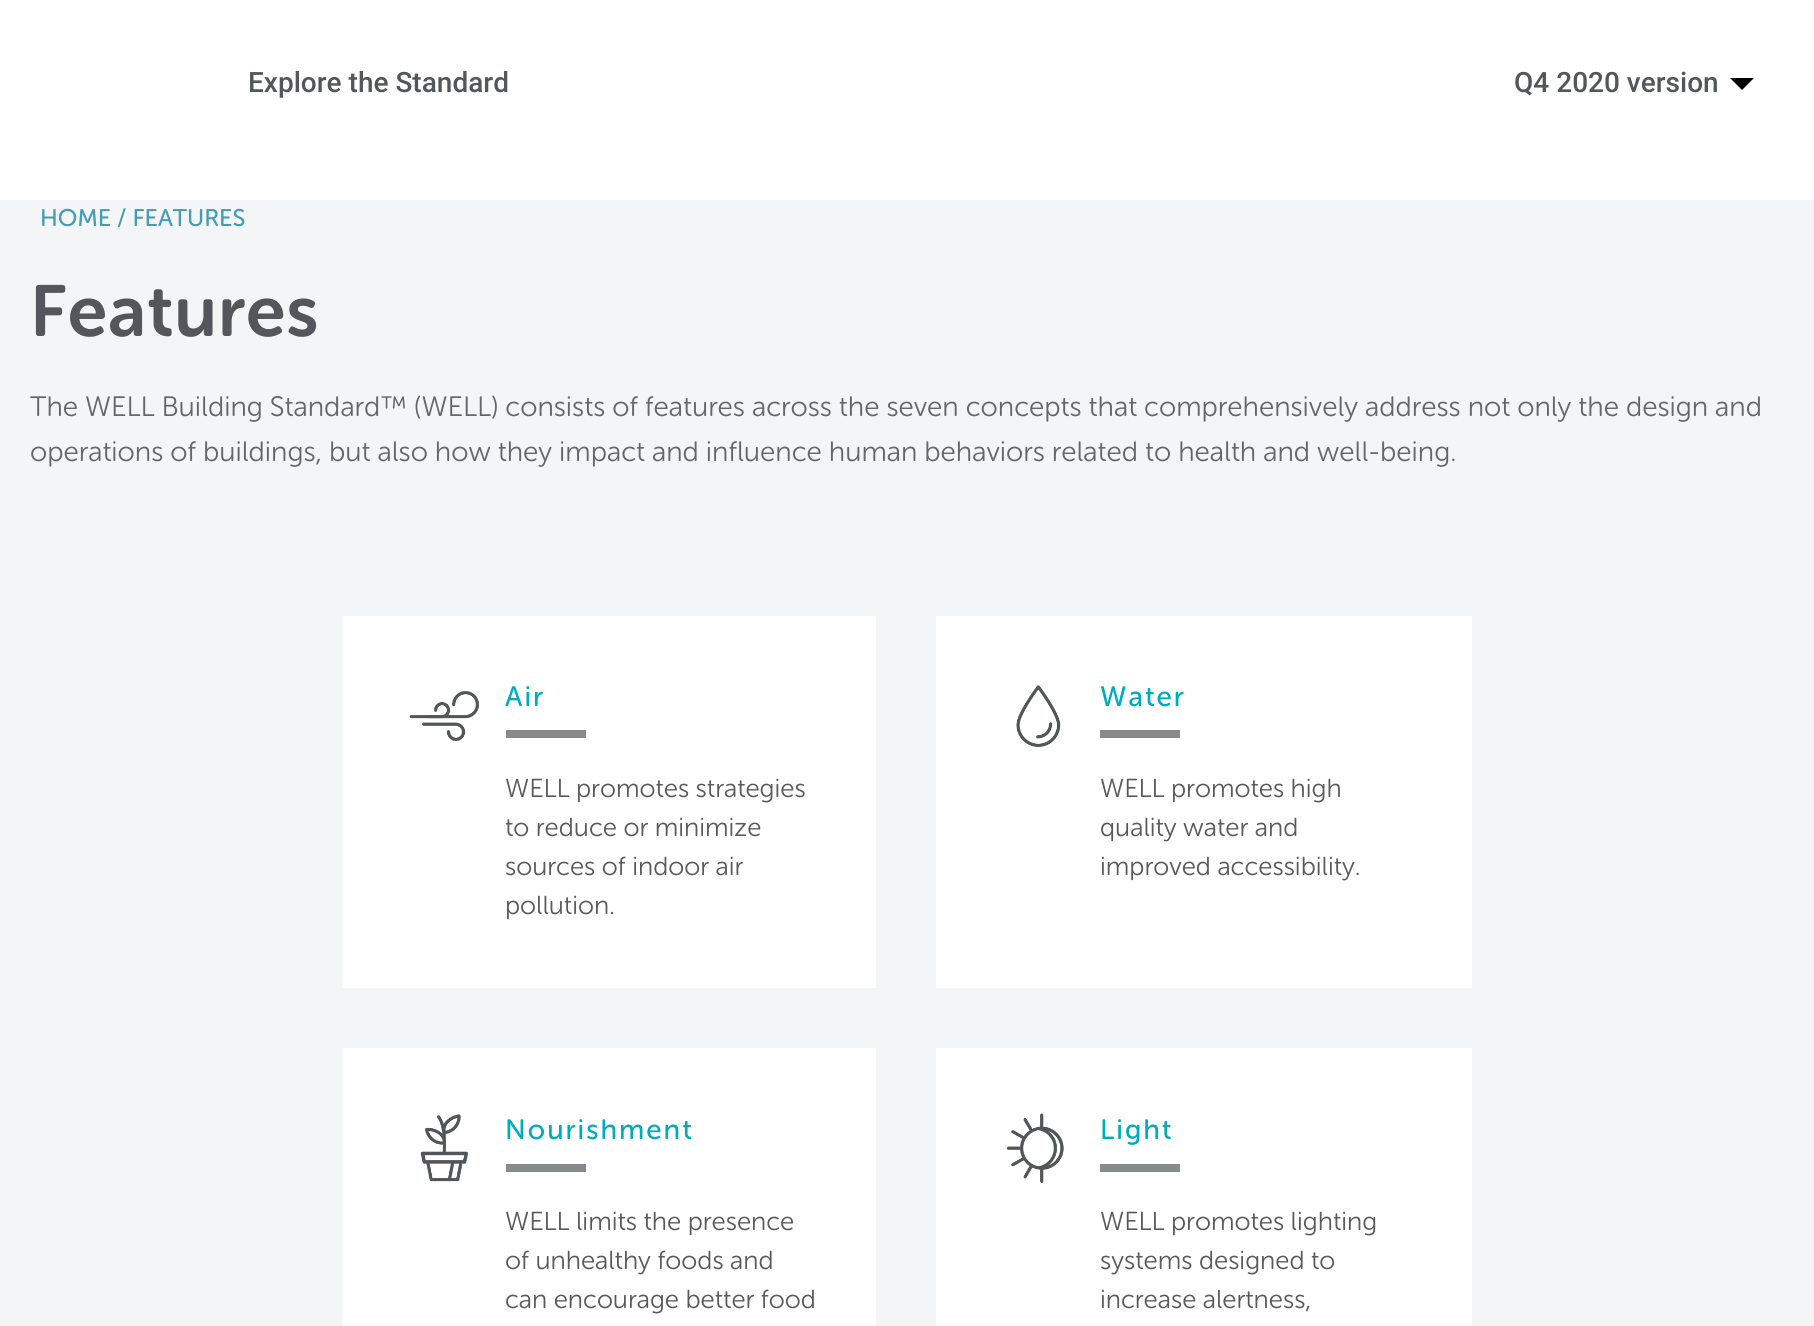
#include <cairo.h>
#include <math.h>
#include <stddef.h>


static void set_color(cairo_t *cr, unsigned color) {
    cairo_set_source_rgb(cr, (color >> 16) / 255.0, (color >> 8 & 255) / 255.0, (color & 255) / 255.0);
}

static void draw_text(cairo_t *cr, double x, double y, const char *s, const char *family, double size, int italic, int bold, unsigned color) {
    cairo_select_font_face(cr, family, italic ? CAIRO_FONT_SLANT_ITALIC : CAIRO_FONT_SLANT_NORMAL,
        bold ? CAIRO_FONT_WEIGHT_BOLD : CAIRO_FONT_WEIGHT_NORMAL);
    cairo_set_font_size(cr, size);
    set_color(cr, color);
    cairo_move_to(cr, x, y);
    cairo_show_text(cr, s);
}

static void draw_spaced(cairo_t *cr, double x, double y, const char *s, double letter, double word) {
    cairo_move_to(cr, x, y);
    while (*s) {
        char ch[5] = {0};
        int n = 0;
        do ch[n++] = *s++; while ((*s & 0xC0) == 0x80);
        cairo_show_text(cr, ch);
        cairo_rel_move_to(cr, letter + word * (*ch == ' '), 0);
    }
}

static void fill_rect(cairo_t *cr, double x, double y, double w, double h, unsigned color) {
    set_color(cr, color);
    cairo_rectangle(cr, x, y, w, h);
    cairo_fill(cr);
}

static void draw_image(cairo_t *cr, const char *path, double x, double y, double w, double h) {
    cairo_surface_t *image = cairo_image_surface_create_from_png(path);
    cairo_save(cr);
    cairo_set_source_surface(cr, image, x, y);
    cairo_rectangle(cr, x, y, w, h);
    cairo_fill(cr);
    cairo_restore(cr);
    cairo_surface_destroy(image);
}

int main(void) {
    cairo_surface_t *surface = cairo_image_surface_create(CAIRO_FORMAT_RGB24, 1814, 1326);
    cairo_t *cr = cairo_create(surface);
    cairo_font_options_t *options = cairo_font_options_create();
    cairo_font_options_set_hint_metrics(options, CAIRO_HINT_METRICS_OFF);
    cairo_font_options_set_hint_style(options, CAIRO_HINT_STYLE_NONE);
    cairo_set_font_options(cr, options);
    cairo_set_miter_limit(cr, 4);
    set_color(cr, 0xFFFFFF);
    cairo_paint(cr);
    draw_text(cr, 248, 92, "Explore the Standard", "Roboto Medium", 28, 0, 0, 0x53565A);
    draw_text(cr, 1514, 92, "Q4 2020 version", "Roboto Medium", 28, 0, 0, 0x53565A);
    set_color(cr, 0x000000);
    cairo_new_path(cr);
    cairo_move_to(cr, 1730, 78);
    cairo_line_to(cr, 1754, 78);
    cairo_line_to(cr, 1742, 90);
    cairo_close_path(cr);
    cairo_fill(cr);
    fill_rect(cr, 0, 200, 1814, 1126, 0xF4F5F7);
    draw_text(cr, 40, 226, "HOME / FEATURES", "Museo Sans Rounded", 24, 0, 0, 0x429DB5);
    cairo_select_font_face(cr, "Museo Sans Rounded SemiBold", CAIRO_FONT_SLANT_NORMAL, CAIRO_FONT_WEIGHT_NORMAL);
    cairo_set_font_size(cr, 72);
    set_color(cr, 0x53565A);
    draw_spaced(cr, 30, 336, "Features", 1, 0);
    draw_text(cr, 30, 416, "The WELL Building Standard™ (WELL) consists of features across the seven concepts that comprehensively address not only the design and", "Museo Sans Rounded Light", 28, 0, 0, 0x666666);
    draw_text(cr, 30, 461, "operations of buildings, but also how they impact and influence human behaviors related to health and well-being.", "Museo Sans Rounded Light", 28, 0, 0, 0x666666);
    fill_rect(cr, 342, 616, 534, 372, 0xFFFFFF);
    draw_image(cr, "assets/img1.png", 409, 691, 70, 50);
    cairo_select_font_face(cr, "Museo Sans Rounded", CAIRO_FONT_SLANT_NORMAL, CAIRO_FONT_WEIGHT_NORMAL);
    set_color(cr, 0x00ACBC);
    draw_spaced(cr, 505, 706, "Air", 2, 0);
    fill_rect(cr, 506, 730, 80, 8, 0x878A8C);
    draw_text(cr, 505, 797, "WELL promotes strategies", "Museo Sans Rounded Light", 26, 0, 0, 0x595959);
    draw_text(cr, 505, 836, "to reduce or minimize", "Museo Sans Rounded Light", 26, 0, 0, 0x595959);
    draw_text(cr, 505, 875, "sources of indoor air", "Museo Sans Rounded Light", 26, 0, 0, 0x595959);
    draw_text(cr, 505, 914, "pollution.", "Museo Sans Rounded Light", 26, 0, 0, 0x595959);
    fill_rect(cr, 936, 616, 536, 372, 0xFFFFFF);
    draw_image(cr, "assets/img2.png", 1016, 685, 45, 62);
    cairo_select_font_face(cr, "Museo Sans Rounded", CAIRO_FONT_SLANT_NORMAL, CAIRO_FONT_WEIGHT_NORMAL);
    cairo_set_font_size(cr, 28);
    set_color(cr, 0x00ACBC);
    draw_spaced(cr, 1100, 706, "Water", 2, 0);
    fill_rect(cr, 1100, 730, 80, 8, 0x878A8C);
    draw_text(cr, 1100, 797, "WELL promotes high", "Museo Sans Rounded Light", 26, 0, 0, 0x595959);
    draw_text(cr, 1100, 836, "quality water and", "Museo Sans Rounded Light", 26, 0, 0, 0x595959);
    draw_text(cr, 1100, 875, "improved accessibility.", "Museo Sans Rounded Light", 26, 0, 0, 0x595959);
    fill_rect(cr, 342, 1048, 534, 278, 0xFFFFFF);
    draw_image(cr, "assets/img3.png", 420, 1114, 48, 68);
    cairo_select_font_face(cr, "Museo Sans Rounded", CAIRO_FONT_SLANT_NORMAL, CAIRO_FONT_WEIGHT_NORMAL);
    cairo_set_font_size(cr, 28);
    set_color(cr, 0x00ACBC);
    draw_spaced(cr, 505, 1139, "Nourishment", 2, 0);
    fill_rect(cr, 506, 1164, 80, 8, 0x878A8C);
    draw_text(cr, 505, 1230, "WELL limits the presence", "Museo Sans Rounded Light", 26, 0, 0, 0x595959);
    draw_text(cr, 505, 1269, "of unhealthy foods and", "Museo Sans Rounded Light", 26, 0, 0, 0x595959);
    draw_text(cr, 505, 1308, "can encourage better food", "Museo Sans Rounded Light", 26, 0, 0, 0x595959);
    fill_rect(cr, 936, 1048, 536, 278, 0xFFFFFF);
    draw_image(cr, "assets/img4.png", 1006, 1113, 58, 70);
    cairo_select_font_face(cr, "Museo Sans Rounded", CAIRO_FONT_SLANT_NORMAL, CAIRO_FONT_WEIGHT_NORMAL);
    cairo_set_font_size(cr, 28);
    set_color(cr, 0x00ACBC);
    draw_spaced(cr, 1100, 1139, "Light", 2, 0);
    fill_rect(cr, 1100, 1164, 80, 8, 0x878A8C);
    draw_text(cr, 1100, 1230, "WELL promotes lighting", "Museo Sans Rounded Light", 26, 0, 0, 0x595959);
    draw_text(cr, 1100, 1269, "systems designed to", "Museo Sans Rounded Light", 26, 0, 0, 0x595959);
    draw_text(cr, 1100, 1308, "increase alertness,", "Museo Sans Rounded Light", 26, 0, 0, 0x595959);
    cairo_surface_write_to_png(surface, "output.png");
    cairo_font_options_destroy(options);
    cairo_destroy(cr);
    cairo_surface_destroy(surface);
    return 0;
}
